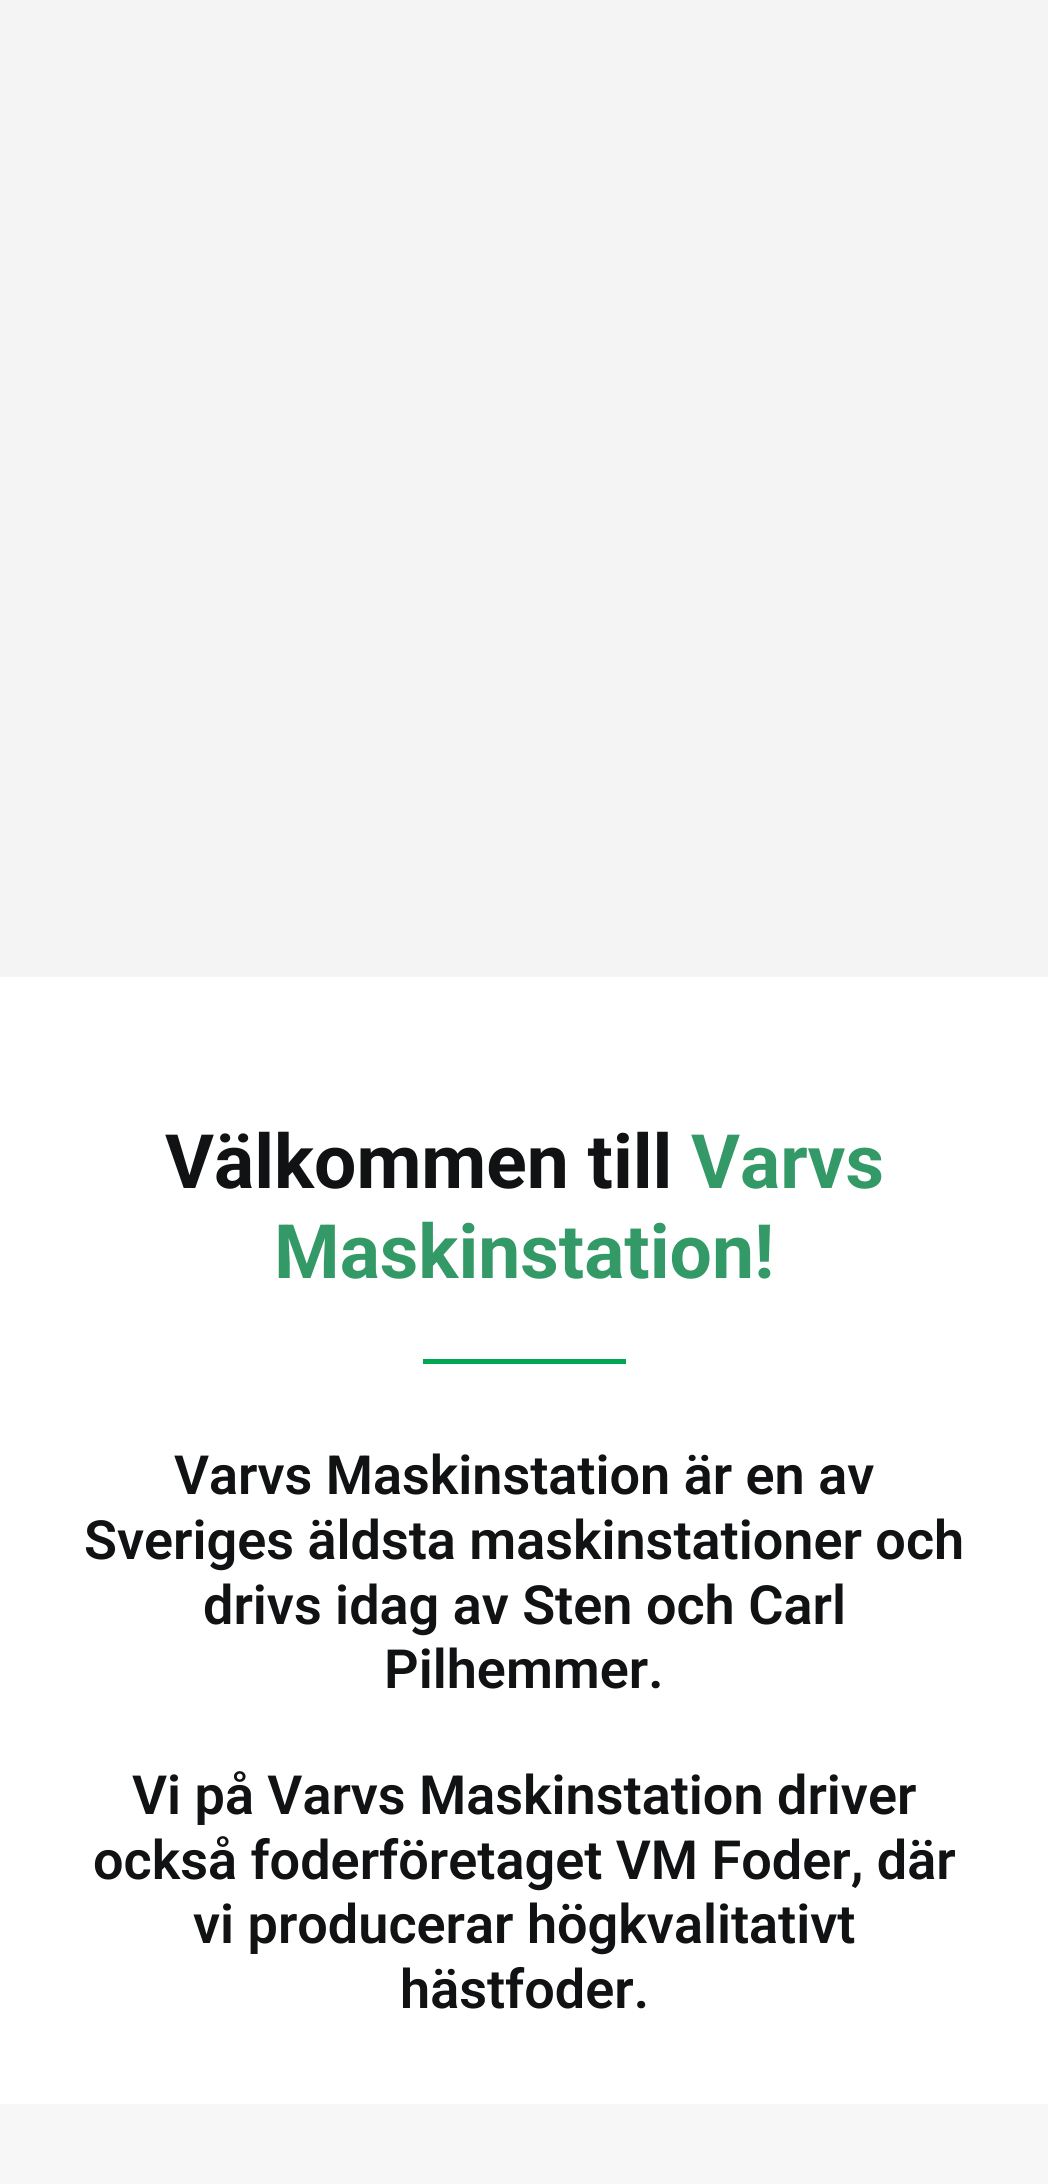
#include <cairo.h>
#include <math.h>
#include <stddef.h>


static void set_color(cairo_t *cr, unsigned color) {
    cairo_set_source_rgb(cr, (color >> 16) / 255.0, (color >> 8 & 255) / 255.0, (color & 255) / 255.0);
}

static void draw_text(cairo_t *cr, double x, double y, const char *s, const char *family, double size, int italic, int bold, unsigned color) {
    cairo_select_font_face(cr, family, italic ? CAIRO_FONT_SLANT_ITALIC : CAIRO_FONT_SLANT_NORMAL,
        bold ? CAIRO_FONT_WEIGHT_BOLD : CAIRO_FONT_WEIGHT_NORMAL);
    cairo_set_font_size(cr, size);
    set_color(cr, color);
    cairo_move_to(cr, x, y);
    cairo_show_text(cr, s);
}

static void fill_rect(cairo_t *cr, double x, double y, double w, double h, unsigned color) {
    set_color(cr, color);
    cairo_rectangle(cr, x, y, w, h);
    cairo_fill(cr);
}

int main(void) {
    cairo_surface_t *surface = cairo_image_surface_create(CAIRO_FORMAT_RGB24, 1048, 2184);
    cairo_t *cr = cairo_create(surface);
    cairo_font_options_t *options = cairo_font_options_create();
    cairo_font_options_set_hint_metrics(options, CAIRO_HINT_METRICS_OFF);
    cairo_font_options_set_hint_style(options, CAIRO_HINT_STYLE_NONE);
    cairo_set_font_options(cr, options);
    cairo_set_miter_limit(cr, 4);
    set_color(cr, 0xF4F4F4);
    cairo_paint(cr);
    fill_rect(cr, 0, 977, 1048, 1127, 0xFFFFFF);
    draw_text(cr, 165, 1188, "Välkommen till", "Roboto", 75, 0, 1, 0x101213);
    draw_text(cr, 691, 1188, "Varvs", "Roboto", 75, 0, 1, 0x339966);
    draw_text(cr, 274, 1278, "Maskinstation!", "Roboto", 75, 0, 1, 0x339966);
    fill_rect(cr, 423, 1359, 203, 5, 0x00A651);
    draw_text(cr, 174, 1494, "Varvs Maskinstation är en av", "Roboto SemiBold", 54, 0, 0, 0x101213);
    draw_text(cr, 84, 1559, "Sveriges äldsta maskinstationer och", "Roboto SemiBold", 54, 0, 0, 0x101213);
    draw_text(cr, 203, 1624, "drivs idag av Sten och Carl", "Roboto SemiBold", 54, 0, 0, 0x101213);
    draw_text(cr, 384, 1688, "Pilhemmer.", "Roboto SemiBold", 54, 0, 0, 0x101213);
    draw_text(cr, 132, 1814, "Vi på Varvs Maskinstation driver", "Roboto SemiBold", 54, 0, 0, 0x101213);
    draw_text(cr, 93, 1879, "också foderföretaget VM Foder, där", "Roboto SemiBold", 54, 0, 0, 0x101213);
    draw_text(cr, 193, 1943, "vi producerar högkvalitativt", "Roboto SemiBold", 54, 0, 0, 0x101213);
    draw_text(cr, 400, 2008, "hästfoder.", "Roboto SemiBold", 54, 0, 0, 0x101213);
    fill_rect(cr, 0, 2104, 1048, 80, 0xF7F7F7);
    cairo_surface_write_to_png(surface, "output.png");
    cairo_font_options_destroy(options);
    cairo_destroy(cr);
    cairo_surface_destroy(surface);
    return 0;
}
